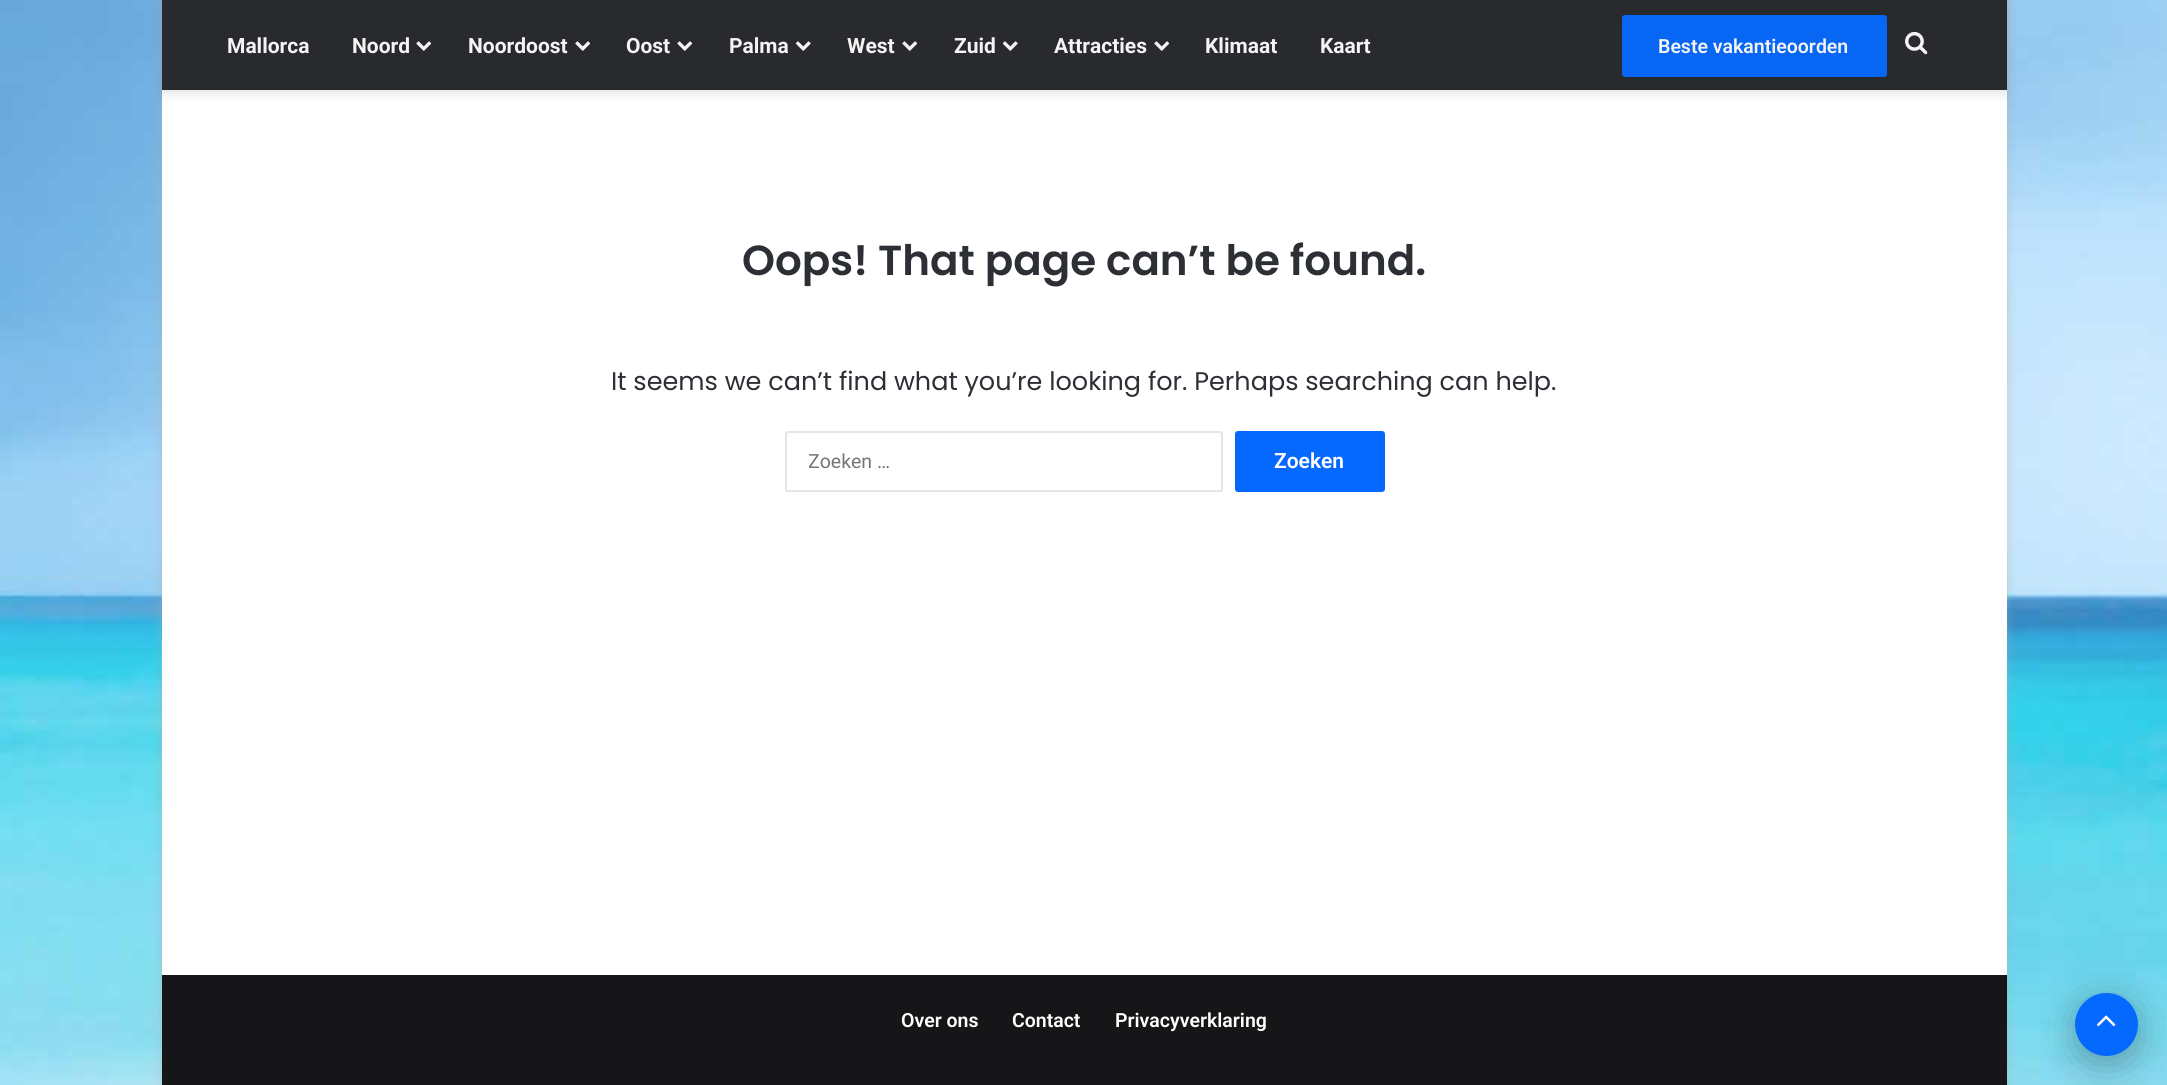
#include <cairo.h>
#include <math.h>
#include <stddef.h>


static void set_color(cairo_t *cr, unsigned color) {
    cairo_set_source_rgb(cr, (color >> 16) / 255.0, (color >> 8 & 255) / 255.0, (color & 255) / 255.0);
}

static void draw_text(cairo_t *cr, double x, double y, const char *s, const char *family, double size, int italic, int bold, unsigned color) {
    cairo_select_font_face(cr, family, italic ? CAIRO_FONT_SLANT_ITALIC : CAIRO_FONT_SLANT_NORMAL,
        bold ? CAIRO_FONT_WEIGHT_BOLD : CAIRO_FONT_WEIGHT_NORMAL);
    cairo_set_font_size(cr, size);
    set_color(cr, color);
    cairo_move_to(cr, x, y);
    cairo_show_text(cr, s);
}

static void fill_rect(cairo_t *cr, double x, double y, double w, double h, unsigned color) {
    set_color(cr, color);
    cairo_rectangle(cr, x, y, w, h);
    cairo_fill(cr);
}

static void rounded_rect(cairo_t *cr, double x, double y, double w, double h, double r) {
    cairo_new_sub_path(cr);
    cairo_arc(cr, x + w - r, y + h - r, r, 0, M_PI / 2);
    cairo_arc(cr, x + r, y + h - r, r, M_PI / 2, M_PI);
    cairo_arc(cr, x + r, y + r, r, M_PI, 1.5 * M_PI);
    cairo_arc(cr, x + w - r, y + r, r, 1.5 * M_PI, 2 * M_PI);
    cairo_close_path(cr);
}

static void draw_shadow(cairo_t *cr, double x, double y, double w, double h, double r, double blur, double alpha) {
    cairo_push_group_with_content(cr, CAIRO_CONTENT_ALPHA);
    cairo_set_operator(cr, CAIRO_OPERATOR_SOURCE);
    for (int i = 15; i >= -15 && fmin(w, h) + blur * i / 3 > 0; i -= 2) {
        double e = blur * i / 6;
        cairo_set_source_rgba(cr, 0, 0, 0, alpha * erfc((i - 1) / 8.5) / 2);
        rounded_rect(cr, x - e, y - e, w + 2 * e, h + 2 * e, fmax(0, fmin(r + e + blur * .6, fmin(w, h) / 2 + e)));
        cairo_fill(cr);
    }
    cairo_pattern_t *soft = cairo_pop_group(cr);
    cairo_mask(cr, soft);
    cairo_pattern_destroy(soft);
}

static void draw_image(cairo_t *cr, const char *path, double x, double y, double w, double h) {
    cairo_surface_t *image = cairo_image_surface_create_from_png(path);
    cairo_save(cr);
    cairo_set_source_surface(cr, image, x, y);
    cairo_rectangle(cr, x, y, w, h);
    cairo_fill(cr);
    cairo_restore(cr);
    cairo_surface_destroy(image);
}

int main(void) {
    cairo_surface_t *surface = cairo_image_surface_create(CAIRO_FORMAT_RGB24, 2167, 1085);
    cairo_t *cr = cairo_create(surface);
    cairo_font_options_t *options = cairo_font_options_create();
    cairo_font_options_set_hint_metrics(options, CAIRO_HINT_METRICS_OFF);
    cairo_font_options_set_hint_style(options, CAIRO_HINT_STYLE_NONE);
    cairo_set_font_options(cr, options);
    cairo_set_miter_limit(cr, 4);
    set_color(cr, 0xFFFFFF);
    cairo_paint(cr);
    draw_image(cr, "assets/img1.png", 0, 0, 2167, 1085);
    set_color(cr, 0xABABAB);
    draw_shadow(cr, 162, -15, 1845, 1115, 0, 5, 0.5);
    fill_rect(cr, 162, 0, 1845, 975, 0xFFFFFF);
    cairo_save(cr);
    cairo_set_fill_rule(cr, CAIRO_FILL_RULE_EVEN_ODD);
    cairo_new_path(cr);
    cairo_move_to(cr, 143, 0);
    cairo_line_to(cr, 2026, 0);
    cairo_line_to(cr, 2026, 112);
    cairo_line_to(cr, 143, 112);
    cairo_close_path(cr);
    cairo_move_to(cr, 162, 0);
    cairo_line_to(cr, 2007, 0);
    cairo_line_to(cr, 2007, 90);
    cairo_line_to(cr, 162, 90);
    cairo_close_path(cr);
    cairo_clip(cr);
    set_color(cr, 0x636363);
    draw_shadow(cr, 162, 3, 1845, 90, 0, 6, 0.2);
    cairo_restore(cr);
    cairo_set_source_rgba(cr, 0.122, 0.125, 0.141, 0.95);
    cairo_rectangle(cr, 162, 0, 1845, 90);
    cairo_fill(cr);
    draw_text(cr, 227, 53, "Mallorca", "Roboto", 21, 0, 1, 0xF4F4F5);
    draw_text(cr, 352, 53, "Noord", "Roboto", 21, 0, 1, 0xF4F4F5);
    draw_image(cr, "assets/img2.png", 416, 41, 16, 10);
    draw_text(cr, 468, 53, "Noordoost", "Roboto", 21, 0, 1, 0xF4F4F5);
    draw_image(cr, "assets/img2.png", 575, 41, 16, 10);
    draw_text(cr, 626, 53, "Oost", "Roboto", 21, 0, 1, 0xF4F4F5);
    draw_image(cr, "assets/img2.png", 677, 41, 16, 10);
    draw_text(cr, 729, 53, "Palma", "Roboto", 21, 0, 1, 0xF4F4F5);
    draw_image(cr, "assets/img3.png", 795, 41, 16, 10);
    draw_text(cr, 847, 53, "West", "Roboto", 21, 0, 1, 0xF4F4F5);
    draw_image(cr, "assets/img4.png", 902, 41, 16, 10);
    draw_text(cr, 954, 53, "Zuid", "Roboto", 21, 0, 1, 0xF4F4F5);
    draw_image(cr, "assets/img5.png", 1002, 41, 16, 10);
    draw_text(cr, 1054, 53, "Attracties", "Roboto", 21, 0, 1, 0xF4F4F5);
    draw_image(cr, "assets/img6.png", 1154, 41, 16, 10);
    draw_text(cr, 1205, 53, "Klimaat", "Roboto", 21, 0, 1, 0xF4F4F5);
    draw_text(cr, 1320, 53, "Kaart", "Roboto", 21, 0, 1, 0xF4F4F5);
    set_color(cr, 0x0866F5);
    rounded_rect(cr, 1622, 15, 265, 62, 3);
    cairo_fill(cr);
    draw_text(cr, 1658, 53, "Beste vakantieoorden", "Roboto SemiBold", 19.5, 0, 0, 0xF4F4F5);
    draw_image(cr, "assets/img7.png", 1905, 31, 23, 24);
    draw_text(cr, 742, 275, "Oops! That page can’t be found.", "Poppins SemiBold", 42, 0, 0, 0x2C2F34);
    draw_text(cr, 611, 390, "It seems we can’t find what you’re looking for. Perhaps searching can help.", "Poppins", 25.5, 0, 0, 0x2C2F34);
    rounded_rect(cr, 786, 432, 436, 59, 2);
    set_color(cr, 0xE6E6E6);
    cairo_stroke(cr);
    cairo_save(cr);
    cairo_rectangle(cr, 809, 450, 384, 23);
    cairo_clip(cr);
    draw_text(cr, 808, 468, "Zoeken …", "Roboto", 19.5, 0, 0, 0x757575);
    cairo_restore(cr);
    set_color(cr, 0x0669FF);
    rounded_rect(cr, 1235, 431, 150, 61, 3);
    cairo_fill(cr);
    draw_text(cr, 1274, 468, "Zoeken", "Roboto SemiBold", 21, 0, 0, 0xFFFFFF);
    fill_rect(cr, 162, 975, 1845, 110, 0x161619);
    draw_text(cr, 901, 1027, "Over ons", "Roboto SemiBold", 19.5, 0, 0, 0xFFFFFF);
    draw_text(cr, 1012, 1027, "Contact", "Roboto SemiBold", 19.5, 0, 0, 0xFFFFFF);
    draw_text(cr, 1115, 1027, "Privacyverklaring", "Roboto SemiBold", 19.5, 0, 0, 0xFFFFFF);
    set_color(cr, 0x000000);
    draw_shadow(cr, 2075, 1001, 63, 63, 31.5, 19, 0.3);
    set_color(cr, 0x0669FF);
    cairo_arc(cr, 2106.5, 1024.5, 31.5, 0, 2 * M_PI);
    cairo_fill(cr);
    draw_image(cr, "assets/img8.png", 2096, 1015, 20, 12);
    cairo_surface_write_to_png(surface, "output.png");
    cairo_font_options_destroy(options);
    cairo_destroy(cr);
    cairo_surface_destroy(surface);
    return 0;
}
